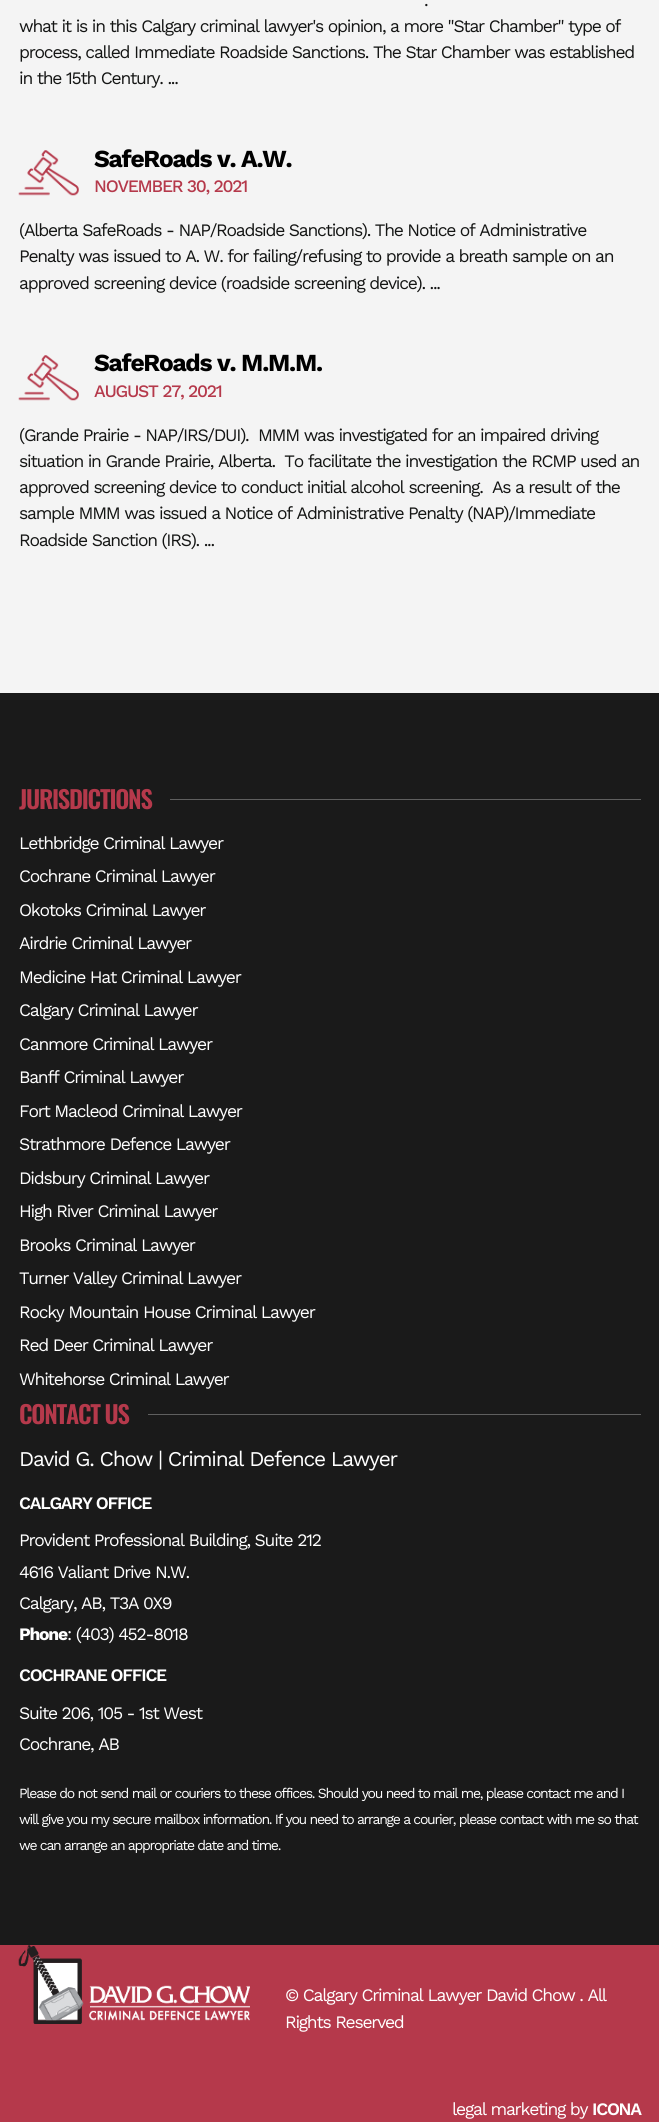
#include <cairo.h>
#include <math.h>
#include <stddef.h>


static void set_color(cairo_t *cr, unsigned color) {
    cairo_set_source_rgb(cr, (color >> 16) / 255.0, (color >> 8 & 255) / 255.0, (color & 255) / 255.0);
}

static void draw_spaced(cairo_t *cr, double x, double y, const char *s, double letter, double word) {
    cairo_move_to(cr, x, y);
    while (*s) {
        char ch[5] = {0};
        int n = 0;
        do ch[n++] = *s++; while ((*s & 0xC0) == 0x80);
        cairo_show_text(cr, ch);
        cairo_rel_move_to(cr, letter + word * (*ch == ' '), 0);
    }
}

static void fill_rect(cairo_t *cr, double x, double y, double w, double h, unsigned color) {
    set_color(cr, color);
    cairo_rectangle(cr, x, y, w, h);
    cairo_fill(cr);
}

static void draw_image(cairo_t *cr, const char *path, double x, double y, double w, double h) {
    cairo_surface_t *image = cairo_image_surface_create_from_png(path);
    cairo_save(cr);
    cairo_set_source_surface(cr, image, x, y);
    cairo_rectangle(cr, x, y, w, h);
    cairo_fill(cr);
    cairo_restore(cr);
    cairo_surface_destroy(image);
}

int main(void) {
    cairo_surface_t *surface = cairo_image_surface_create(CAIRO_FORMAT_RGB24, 659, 2122);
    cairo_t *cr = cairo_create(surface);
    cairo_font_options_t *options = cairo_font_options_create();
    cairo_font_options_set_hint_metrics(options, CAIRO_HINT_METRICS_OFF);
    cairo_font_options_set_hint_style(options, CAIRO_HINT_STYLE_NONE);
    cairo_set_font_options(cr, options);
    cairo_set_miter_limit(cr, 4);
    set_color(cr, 0xF4F4F4);
    cairo_paint(cr);
    cairo_select_font_face(cr, "Work Sans", CAIRO_FONT_SLANT_NORMAL, CAIRO_FONT_WEIGHT_NORMAL);
    cairo_set_font_size(cr, 17.5);
    set_color(cr, 0x141514);
    draw_spaced(cr, 424, 6, ".", -1.25, 0);
    draw_spaced(cr, 19, 32, "what it is in this Calgary criminal lawyer's opinion, a more \"Star Chamber\" type of", -1.25, 0);
    draw_spaced(cr, 19, 58, "process, called Immediate Roadside Sanctions. The Star Chamber was established", -1.25, 0);
    draw_spaced(cr, 19, 84, "in the 15th Century. ...", -1.25, 0);
    draw_image(cr, "assets/img1.png", 18, 150, 61, 46);
    cairo_select_font_face(cr, "Work Sans", CAIRO_FONT_SLANT_NORMAL, CAIRO_FONT_WEIGHT_BOLD);
    cairo_set_font_size(cr, 24.5);
    set_color(cr, 0x000000);
    draw_spaced(cr, 94, 167, "SafeRoads v. A.W.", -1.25, 0);
    cairo_select_font_face(cr, "Work Sans Medium", CAIRO_FONT_SLANT_NORMAL, CAIRO_FONT_WEIGHT_NORMAL);
    cairo_set_font_size(cr, 17.5);
    set_color(cr, 0xB5394B);
    draw_spaced(cr, 94, 192, "NOVEMBER 30, 2021", -1.25, 0);
    cairo_select_font_face(cr, "Work Sans", CAIRO_FONT_SLANT_NORMAL, CAIRO_FONT_WEIGHT_NORMAL);
    set_color(cr, 0x141514);
    draw_spaced(cr, 19, 236, "(Alberta SafeRoads - NAP/Roadside Sanctions). The Notice of Administrative", -1.25, 0);
    draw_spaced(cr, 19, 262, "Penalty was issued to A. W. for failing/refusing to provide a breath sample on an", -1.25, 0);
    draw_spaced(cr, 19, 289, "approved screening device (roadside screening device). ...", -1.25, 0);
    draw_image(cr, "assets/img1.png", 18, 355, 61, 46);
    cairo_select_font_face(cr, "Work Sans", CAIRO_FONT_SLANT_NORMAL, CAIRO_FONT_WEIGHT_BOLD);
    cairo_set_font_size(cr, 24.5);
    set_color(cr, 0x000000);
    draw_spaced(cr, 94, 371, "SafeRoads v. M.M.M.", -1.25, 0);
    cairo_select_font_face(cr, "Work Sans Medium", CAIRO_FONT_SLANT_NORMAL, CAIRO_FONT_WEIGHT_NORMAL);
    cairo_set_font_size(cr, 17.5);
    set_color(cr, 0xB5394B);
    draw_spaced(cr, 94, 397, "AUGUST 27, 2021", -1.25, 0);
    cairo_select_font_face(cr, "Work Sans", CAIRO_FONT_SLANT_NORMAL, CAIRO_FONT_WEIGHT_NORMAL);
    set_color(cr, 0x141514);
    draw_spaced(cr, 19, 441, "(Grande Prairie - NAP/IRS/DUI).  MMM was investigated for an impaired driving", -1.25, 0);
    draw_spaced(cr, 19, 467, "situation in Grande Prairie, Alberta.  To facilitate the investigation the RCMP used an", -1.25, 0);
    draw_spaced(cr, 19, 493, "approved screening device to conduct initial alcohol screening.  As a result of the", -1.25, 0);
    draw_spaced(cr, 19, 519, "sample MMM was issued a Notice of Administrative Penalty (NAP)/Immediate", -1.25, 0);
    draw_spaced(cr, 19, 546, "Roadside Sanction (IRS). ...", -1.25, 0);
    fill_rect(cr, 0, 693, 659, 1252, 0x1A1A1A);
    cairo_select_font_face(cr, "Oswald SemiBold", CAIRO_FONT_SLANT_NORMAL, CAIRO_FONT_WEIGHT_NORMAL);
    cairo_set_font_size(cr, 24.5);
    set_color(cr, 0xB5394B);
    draw_spaced(cr, 19, 809, "JURISDICTIONS", -1.25, 0);
    fill_rect(cr, 170, 799, 471, 1, 0x5F5F5F);
    cairo_select_font_face(cr, "Work Sans", CAIRO_FONT_SLANT_NORMAL, CAIRO_FONT_WEIGHT_NORMAL);
    cairo_set_font_size(cr, 17.5);
    set_color(cr, 0xFFFFFF);
    draw_spaced(cr, 19, 849, "Lethbridge Criminal Lawyer", -1.25, 0);
    draw_spaced(cr, 19, 882, "Cochrane Criminal Lawyer", -1.25, 0);
    draw_spaced(cr, 19, 916, "Okotoks Criminal Lawyer", -1.25, 0);
    draw_spaced(cr, 19, 949, "Airdrie Criminal Lawyer", -1.25, 0);
    draw_spaced(cr, 19, 983, "Medicine Hat Criminal Lawyer", -1.25, 0);
    draw_spaced(cr, 19, 1016, "Calgary Criminal Lawyer", -1.25, 0);
    draw_spaced(cr, 19, 1050, "Canmore Criminal Lawyer", -1.25, 0);
    draw_spaced(cr, 19, 1083, "Banff Criminal Lawyer", -1.25, 0);
    draw_spaced(cr, 19, 1117, "Fort Macleod Criminal Lawyer", -1.25, 0);
    draw_spaced(cr, 19, 1150, "Strathmore Defence Lawyer", -1.25, 0);
    draw_spaced(cr, 19, 1184, "Didsbury Criminal Lawyer", -1.25, 0);
    draw_spaced(cr, 19, 1217, "High River Criminal Lawyer", -1.25, 0);
    draw_spaced(cr, 19, 1251, "Brooks Criminal Lawyer", -1.25, 0);
    draw_spaced(cr, 19, 1284, "Turner Valley Criminal Lawyer", -1.25, 0);
    draw_spaced(cr, 19, 1318, "Rocky Mountain House Criminal Lawyer", -1.25, 0);
    draw_spaced(cr, 19, 1351, "Red Deer Criminal Lawyer", -1.25, 0);
    draw_spaced(cr, 19, 1385, "Whitehorse Criminal Lawyer", -1.25, 0);
    cairo_select_font_face(cr, "Oswald SemiBold", CAIRO_FONT_SLANT_NORMAL, CAIRO_FONT_WEIGHT_NORMAL);
    cairo_set_font_size(cr, 24.5);
    set_color(cr, 0xB5394B);
    draw_spaced(cr, 19, 1424, "CONTACT US", -1.25, 0);
    fill_rect(cr, 148, 1414, 493, 1, 0x5F5F5F);
    cairo_select_font_face(cr, "Work Sans", CAIRO_FONT_SLANT_NORMAL, CAIRO_FONT_WEIGHT_NORMAL);
    cairo_set_font_size(cr, 21);
    set_color(cr, 0xFFFFFF);
    draw_spaced(cr, 19, 1466, "David G. Chow | Criminal Defence Lawyer", -1.25, 0);
    cairo_select_font_face(cr, "Work Sans SemiBold", CAIRO_FONT_SLANT_NORMAL, CAIRO_FONT_WEIGHT_NORMAL);
    cairo_set_font_size(cr, 17.5);
    draw_spaced(cr, 19, 1509, "CALGARY OFFICE", -1.25, 0);
    cairo_select_font_face(cr, "Work Sans", CAIRO_FONT_SLANT_NORMAL, CAIRO_FONT_WEIGHT_NORMAL);
    draw_spaced(cr, 19, 1546, "Provident Professional Building, Suite 212", -1.25, 0);
    draw_spaced(cr, 19, 1578, "4616 Valiant Drive N.W.", -1.25, 0);
    draw_spaced(cr, 19, 1609, "Calgary, AB, T3A 0X9", -1.25, 0);
    cairo_select_font_face(cr, "Work Sans", CAIRO_FONT_SLANT_NORMAL, CAIRO_FONT_WEIGHT_BOLD);
    draw_spaced(cr, 19, 1640, "Phone", -1.25, 0);
    cairo_select_font_face(cr, "Work Sans", CAIRO_FONT_SLANT_NORMAL, CAIRO_FONT_WEIGHT_NORMAL);
    draw_spaced(cr, 67, 1640, ": (403) 452-8018", -1.25, 0);
    cairo_select_font_face(cr, "Work Sans SemiBold", CAIRO_FONT_SLANT_NORMAL, CAIRO_FONT_WEIGHT_NORMAL);
    draw_spaced(cr, 19, 1681, "COCHRANE OFFICE", -1.25, 0);
    cairo_select_font_face(cr, "Work Sans", CAIRO_FONT_SLANT_NORMAL, CAIRO_FONT_WEIGHT_NORMAL);
    draw_spaced(cr, 19, 1719, "Suite 206, 105 - 1st West", -1.25, 0);
    draw_spaced(cr, 19, 1750, "Cochrane, AB", -1.25, 0);
    cairo_set_font_size(cr, 14);
    draw_spaced(cr, 19, 1798, "Please do not send mail or couriers to these offices. Should you need to mail me, please contact me and I", -1.25, 0);
    draw_spaced(cr, 19, 1824, "will give you my secure mailbox information. If you need to arrange a courier, please contact with me so that", -1.25, 0);
    draw_spaced(cr, 19, 1850, "we can arrange an appropriate date and time.", -1.25, 0);
    fill_rect(cr, 0, 1945, 659, 177, 0xB5394B);
    draw_image(cr, "assets/img2.png", 18, 1945, 232, 79);
    cairo_set_font_size(cr, 17.5);
    set_color(cr, 0xFFFFFF);
    draw_spaced(cr, 285, 2001, "© Calgary Criminal Lawyer David Chow . All", -1.25, 0);
    draw_spaced(cr, 285, 2028, "Rights Reserved", -1.25, 0);
    draw_spaced(cr, 452, 2115, "legal marketing by", -1.25, 0);
    cairo_select_font_face(cr, "Work Sans SemiBold", CAIRO_FONT_SLANT_NORMAL, CAIRO_FONT_WEIGHT_NORMAL);
    draw_spaced(cr, 592, 2115, "ICONA", -1.25, 0);
    cairo_surface_write_to_png(surface, "output.png");
    cairo_font_options_destroy(options);
    cairo_destroy(cr);
    cairo_surface_destroy(surface);
    return 0;
}
